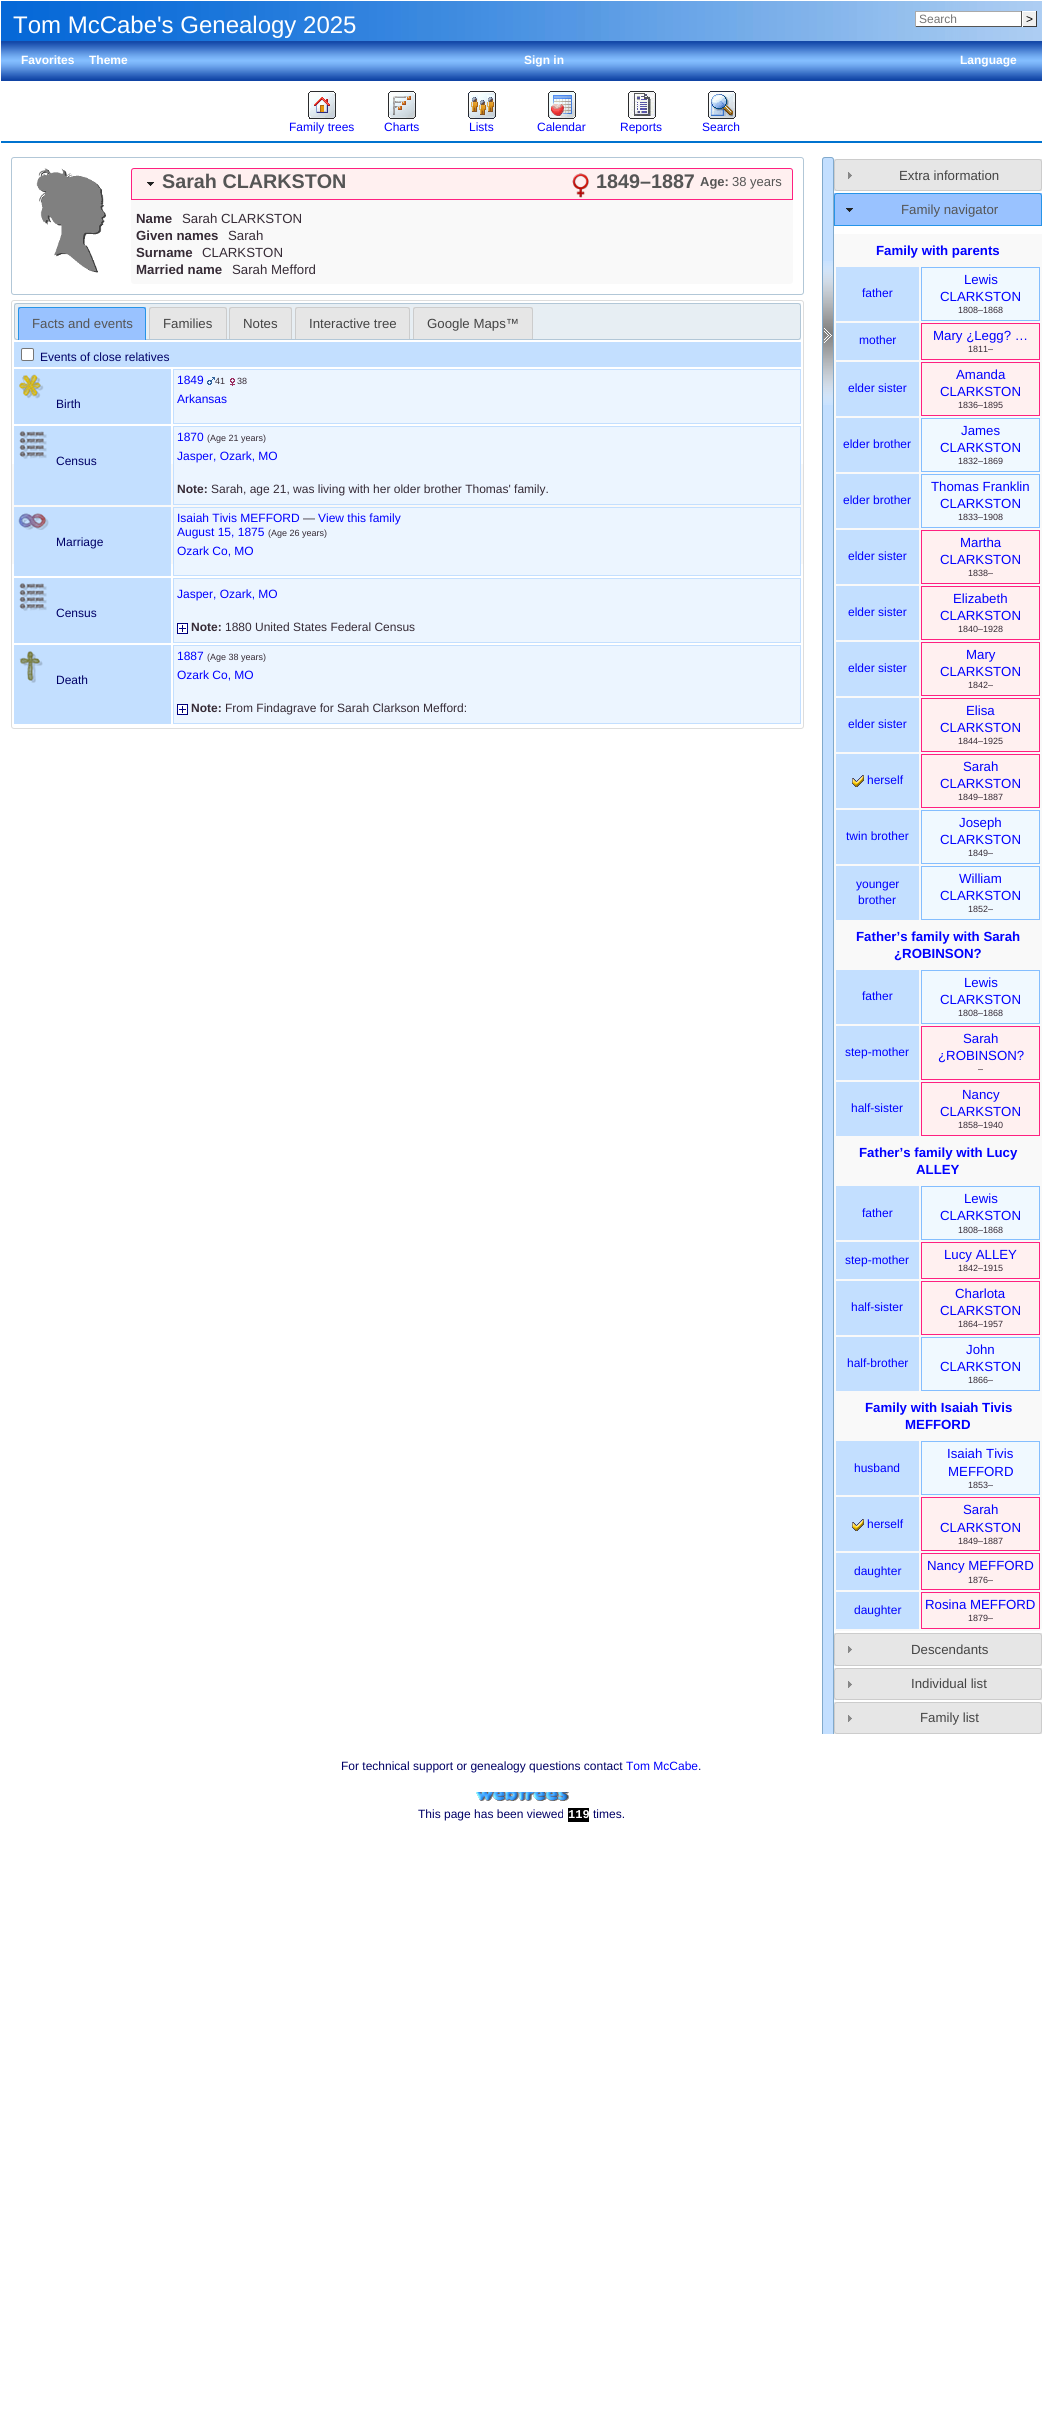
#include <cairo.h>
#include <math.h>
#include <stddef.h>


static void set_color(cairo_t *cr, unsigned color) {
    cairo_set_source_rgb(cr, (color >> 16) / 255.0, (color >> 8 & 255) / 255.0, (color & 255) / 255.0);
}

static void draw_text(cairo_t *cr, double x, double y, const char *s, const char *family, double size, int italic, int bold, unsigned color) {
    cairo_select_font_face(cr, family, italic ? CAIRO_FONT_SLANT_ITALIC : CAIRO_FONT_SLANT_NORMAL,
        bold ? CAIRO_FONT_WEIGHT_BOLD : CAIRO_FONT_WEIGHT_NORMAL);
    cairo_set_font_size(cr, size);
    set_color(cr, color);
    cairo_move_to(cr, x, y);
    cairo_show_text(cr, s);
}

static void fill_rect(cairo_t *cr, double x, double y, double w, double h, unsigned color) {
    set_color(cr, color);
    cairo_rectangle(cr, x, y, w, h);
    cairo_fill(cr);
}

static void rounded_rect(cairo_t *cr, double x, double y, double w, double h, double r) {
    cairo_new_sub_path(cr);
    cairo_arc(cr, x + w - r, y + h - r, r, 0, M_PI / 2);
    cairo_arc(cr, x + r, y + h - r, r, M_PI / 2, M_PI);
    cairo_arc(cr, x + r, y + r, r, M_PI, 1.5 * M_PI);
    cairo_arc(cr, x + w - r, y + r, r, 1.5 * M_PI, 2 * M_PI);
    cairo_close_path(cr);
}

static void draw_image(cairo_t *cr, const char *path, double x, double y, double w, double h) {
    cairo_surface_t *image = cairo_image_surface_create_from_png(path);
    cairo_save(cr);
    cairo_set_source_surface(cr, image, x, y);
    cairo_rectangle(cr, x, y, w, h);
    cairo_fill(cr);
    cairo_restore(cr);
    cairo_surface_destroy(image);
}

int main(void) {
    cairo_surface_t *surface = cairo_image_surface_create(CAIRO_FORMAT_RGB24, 1043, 2410);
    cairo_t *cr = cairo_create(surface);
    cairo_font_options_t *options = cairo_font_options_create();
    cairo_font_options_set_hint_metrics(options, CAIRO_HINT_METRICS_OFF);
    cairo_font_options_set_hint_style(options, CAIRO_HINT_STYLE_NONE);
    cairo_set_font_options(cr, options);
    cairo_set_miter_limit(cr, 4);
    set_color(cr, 0xFFFFFF);
    cairo_paint(cr);
    draw_image(cr, "assets/img1.png", 1, 1, 1041, 40);
    draw_text(cr, 13, 33, "Tom McCabe's Genealogy 2025", "Liberation Sans", 24, 0, 0, 0xFFFFFF);
    fill_rect(cr, 916, 12, 105, 14, 0xFFFFFF);
    fill_rect(cr, 915, 11, 107, 1, 0xAAAAAA);
    fill_rect(cr, 1021, 11, 1, 16, 0x555555);
    fill_rect(cr, 915, 26, 107, 1, 0x555555);
    fill_rect(cr, 915, 11, 1, 16, 0xAAAAAA);
    draw_text(cr, 919, 23, "Search", "Liberation Sans", 12, 0, 0, 0x757575);
    fill_rect(cr, 1023, 12, 13, 14, 0xEFEFEF);
    fill_rect(cr, 1022, 11, 15, 1, 0xFFFFFF);
    fill_rect(cr, 1036, 11, 1, 16, 0x393939);
    fill_rect(cr, 1022, 26, 15, 1, 0x393939);
    fill_rect(cr, 1022, 11, 1, 16, 0xFFFFFF);
    draw_text(cr, 1026, 23, ">", "Liberation Sans", 12, 0, 0, 0x000000);
    draw_image(cr, "assets/img2.png", 1, 41, 1041, 40);
    draw_text(cr, 21, 64, "Favorites", "Liberation Sans", 12, 0, 1, 0xFFFFFF);
    draw_text(cr, 89, 64, "Theme", "Liberation Sans", 12, 0, 1, 0xFFFFFF);
    draw_text(cr, 524, 64, "Sign in", "Liberation Sans", 12, 0, 1, 0xFFFFFF);
    draw_text(cr, 960, 64, "Language", "Liberation Sans", 12, 0, 1, 0xFFFFFF);
    fill_rect(cr, 1, 141, 1041, 2, 0x0073CF);
    draw_image(cr, "assets/img3.png", 308, 91, 28, 28);
    draw_text(cr, 289, 131, "Family trees", "Liberation Sans", 12, 0, 0, 0x0000FF);
    draw_image(cr, "assets/img4.png", 388, 91, 28, 28);
    draw_text(cr, 384, 131, "Charts", "Liberation Sans", 12, 0, 0, 0x0000FF);
    draw_image(cr, "assets/img5.png", 468, 91, 28, 28);
    draw_text(cr, 469, 131, "Lists", "Liberation Sans", 12, 0, 0, 0x0000FF);
    draw_image(cr, "assets/img6.png", 548, 91, 28, 28);
    draw_text(cr, 537, 131, "Calendar", "Liberation Sans", 12, 0, 0, 0x0000FF);
    draw_image(cr, "assets/img7.png", 628, 91, 28, 28);
    draw_text(cr, 620, 131, "Reports", "Liberation Sans", 12, 0, 0, 0x0000FF);
    draw_image(cr, "assets/img8.png", 708, 91, 28, 28);
    draw_text(cr, 702, 131, "Search", "Liberation Sans", 12, 0, 0, 0x0000FF);
    rounded_rect(cr, 11.5, 157.5, 792, 137, 2.5);
    set_color(cr, 0xB2C7D7);
    cairo_set_line_width(cr, 1);
    cairo_stroke(cr);
    draw_image(cr, "assets/img9.png", 36, 168, 70, 105);
    set_color(cr, 0xFFF0F0);
    cairo_new_path(cr);
    cairo_move_to(cr, 134, 168.5);
    cairo_line_to(cr, 790, 168.5);
    cairo_curve_to(cr, 791.5, 168.5, 792.5, 169.5, 792.5, 171);
    cairo_line_to(cr, 792.5, 199.5);
    cairo_line_to(cr, 131.5, 199.5);
    cairo_line_to(cr, 131.5, 171);
    cairo_curve_to(cr, 131.5, 169.5, 132.5, 168.5, 134, 168.5);
    cairo_close_path(cr);
    cairo_fill_preserve(cr);
    set_color(cr, 0xFF2080);
    cairo_stroke(cr);
    draw_image(cr, "assets/img10.png", 147, 182, 7, 4);
    draw_text(cr, 162, 188, "Sarah CLARKSTON", "Liberation Sans", 19.75, 0, 1, 0x555555);
    draw_image(cr, "assets/img11.png", 572, 173, 17, 25);
    draw_text(cr, 596, 188, "1849–1887", "Liberation Sans", 19.75, 0, 1, 0x555555);
    draw_text(cr, 700, 186, "Age:", "Liberation Sans", 13, 0, 1, 0x555555);
    draw_text(cr, 732, 186, "38 years", "Liberation Sans", 13, 0, 0, 0x555555);
    set_color(cr, 0xF9F9F9);
    cairo_new_path(cr);
    cairo_move_to(cr, 131, 200);
    cairo_line_to(cr, 793, 200);
    cairo_line_to(cr, 793, 281);
    cairo_curve_to(cr, 793, 282.5, 791.5, 284, 790, 284);
    cairo_line_to(cr, 134, 284);
    cairo_curve_to(cr, 132.5, 284, 131, 282.5, 131, 281);
    cairo_close_path(cr);
    cairo_fill(cr);
    draw_text(cr, 136, 223, "Name", "Liberation Sans", 13.25, 0, 1, 0x362B36);
    draw_text(cr, 182, 223, "Sarah CLARKSTON", "Liberation Sans", 13.25, 0, 0, 0x362B36);
    draw_text(cr, 136, 240, "Given names", "Liberation Sans", 13.25, 0, 1, 0x362B36);
    draw_text(cr, 228, 240, "Sarah", "Liberation Sans", 13.25, 0, 0, 0x362B36);
    draw_text(cr, 136, 257, "Surname", "Liberation Sans", 13.25, 0, 1, 0x362B36);
    draw_text(cr, 202, 257, "CLARKSTON", "Liberation Sans", 13.25, 0, 0, 0x362B36);
    draw_text(cr, 136, 274, "Married name", "Liberation Sans", 13.25, 0, 1, 0x362B36);
    draw_text(cr, 232, 274, "Sarah Mefford", "Liberation Sans", 13.25, 0, 0, 0x362B36);
    fill_rect(cr, 12, 464, 791, 100, 0xF9F9F9);
    rounded_rect(cr, 11.5, 300.5, 792, 428, 2.5);
    set_color(cr, 0xDDDDDD);
    cairo_stroke(cr);
    fill_rect(cr, 14, 303, 787, 37, 0xE7EEF3);
    rounded_rect(cr, 14.5, 303.5, 786, 36, 2.5);
    set_color(cr, 0xB2C7D7);
    cairo_stroke(cr);
    fill_rect(cr, 18, 307, 128, 33, 0x99C2FF);
    set_color(cr, 0x2694E8);
    cairo_set_fill_rule(cr, CAIRO_FILL_RULE_EVEN_ODD);
    cairo_new_path(cr);
    cairo_move_to(cr, 21, 307);
    cairo_line_to(cr, 143, 307);
    cairo_curve_to(cr, 145, 307, 146, 308, 146, 310);
    cairo_line_to(cr, 146, 340);
    cairo_line_to(cr, 18, 340);
    cairo_line_to(cr, 18, 310);
    cairo_curve_to(cr, 18, 308, 19, 307, 21, 307);
    cairo_close_path(cr);
    cairo_move_to(cr, 21, 308);
    cairo_line_to(cr, 143, 308);
    cairo_curve_to(cr, 144, 308, 145, 309, 145, 310);
    cairo_line_to(cr, 145, 340);
    cairo_line_to(cr, 19, 340);
    cairo_line_to(cr, 19, 310);
    cairo_curve_to(cr, 19, 309, 20, 308, 21, 308);
    cairo_close_path(cr);
    cairo_fill(cr);
    draw_text(cr, 32, 328, "Facts and events", "Liberation Sans", 13.25, 0, 0, 0x555555);
    fill_rect(cr, 149, 307, 78, 32, 0xE6E6E6);
    set_color(cr, 0xCCCCCC);
    cairo_new_path(cr);
    cairo_move_to(cr, 152, 307);
    cairo_line_to(cr, 224, 307);
    cairo_curve_to(cr, 226, 307, 227, 308, 227, 310);
    cairo_line_to(cr, 227, 339);
    cairo_line_to(cr, 149, 339);
    cairo_line_to(cr, 149, 310);
    cairo_curve_to(cr, 149, 308, 150, 307, 152, 307);
    cairo_close_path(cr);
    cairo_move_to(cr, 152, 308);
    cairo_line_to(cr, 224, 308);
    cairo_curve_to(cr, 225, 308, 226, 309, 226, 310);
    cairo_line_to(cr, 226, 339);
    cairo_line_to(cr, 150, 339);
    cairo_line_to(cr, 150, 310);
    cairo_curve_to(cr, 150, 309, 151, 308, 152, 308);
    cairo_close_path(cr);
    cairo_fill(cr);
    draw_text(cr, 163, 328, "Families", "Liberation Sans", 13.25, 0, 0, 0x444444);
    fill_rect(cr, 229, 307, 63, 32, 0xE6E6E6);
    set_color(cr, 0xCCCCCC);
    cairo_new_path(cr);
    cairo_move_to(cr, 232, 307);
    cairo_line_to(cr, 289, 307);
    cairo_curve_to(cr, 291, 307, 292, 308, 292, 310);
    cairo_line_to(cr, 292, 339);
    cairo_line_to(cr, 229, 339);
    cairo_line_to(cr, 229, 310);
    cairo_curve_to(cr, 229, 308, 230, 307, 232, 307);
    cairo_close_path(cr);
    cairo_move_to(cr, 232, 308);
    cairo_line_to(cr, 289, 308);
    cairo_curve_to(cr, 290, 308, 291, 309, 291, 310);
    cairo_line_to(cr, 291, 339);
    cairo_line_to(cr, 230, 339);
    cairo_line_to(cr, 230, 310);
    cairo_curve_to(cr, 230, 309, 231, 308, 232, 308);
    cairo_close_path(cr);
    cairo_fill(cr);
    draw_text(cr, 243, 328, "Notes", "Liberation Sans", 13.25, 0, 0, 0x444444);
    fill_rect(cr, 295, 307, 115, 32, 0xE6E6E6);
    set_color(cr, 0xCCCCCC);
    cairo_new_path(cr);
    cairo_move_to(cr, 298, 307);
    cairo_line_to(cr, 407, 307);
    cairo_curve_to(cr, 409, 307, 410, 308, 410, 310);
    cairo_line_to(cr, 410, 339);
    cairo_line_to(cr, 295, 339);
    cairo_line_to(cr, 295, 310);
    cairo_curve_to(cr, 295, 308, 296, 307, 298, 307);
    cairo_close_path(cr);
    cairo_move_to(cr, 298, 308);
    cairo_line_to(cr, 407, 308);
    cairo_curve_to(cr, 408, 308, 409, 309, 409, 310);
    cairo_line_to(cr, 409, 339);
    cairo_line_to(cr, 296, 339);
    cairo_line_to(cr, 296, 310);
    cairo_curve_to(cr, 296, 309, 297, 308, 298, 308);
    cairo_close_path(cr);
    cairo_fill(cr);
    draw_text(cr, 309, 328, "Interactive tree", "Liberation Sans", 13.25, 0, 0, 0x444444);
    fill_rect(cr, 413, 307, 120, 32, 0xE6E6E6);
    set_color(cr, 0xCCCCCC);
    cairo_new_path(cr);
    cairo_move_to(cr, 416, 307);
    cairo_line_to(cr, 530, 307);
    cairo_curve_to(cr, 532, 307, 533, 308, 533, 310);
    cairo_line_to(cr, 533, 339);
    cairo_line_to(cr, 413, 339);
    cairo_line_to(cr, 413, 310);
    cairo_curve_to(cr, 413, 308, 414, 307, 416, 307);
    cairo_close_path(cr);
    cairo_move_to(cr, 416, 308);
    cairo_line_to(cr, 530, 308);
    cairo_curve_to(cr, 531, 308, 532, 309, 532, 310);
    cairo_line_to(cr, 532, 339);
    cairo_line_to(cr, 414, 339);
    cairo_line_to(cr, 414, 310);
    cairo_curve_to(cr, 414, 309, 415, 308, 416, 308);
    cairo_close_path(cr);
    cairo_fill(cr);
    draw_text(cr, 427, 328, "Google Maps™", "Liberation Sans", 13.25, 0, 0, 0x444444);
    fill_rect(cr, 14, 342, 787, 25, 0xC3DFFF);
    set_color(cr, 0xFFFFFF);
    rounded_rect(cr, 21.5, 348.5, 12, 12, 1.5);
    cairo_fill_preserve(cr);
    set_color(cr, 0x767676);
    cairo_stroke(cr);
    draw_text(cr, 40, 361, "Events of close relatives", "Liberation Sans", 12, 0, 0, 0x000066);
    fill_rect(cr, 14, 369, 157, 55, 0xC3DFFF);
    draw_image(cr, "assets/img12.png", 19, 374, 25, 25);
    draw_text(cr, 56, 408, "Birth", "Liberation Sans", 12, 0, 0, 0x000066);
    set_color(cr, 0xECF5FF);
    cairo_rectangle(cr, 173.5, 369.5, 627, 54);
    cairo_fill_preserve(cr);
    set_color(cr, 0xC3DFFF);
    cairo_stroke(cr);
    draw_text(cr, 177, 384, "1849", "Liberation Sans", 12, 0, 0, 0x0000FF);
    draw_image(cr, "assets/img13.png", 207, 377, 8, 8);
    draw_text(cr, 215, 384, "41", "Liberation Sans", 9, 0, 0, 0x362B36);
    draw_image(cr, "assets/img14.png", 230, 378, 5, 8);
    draw_text(cr, 237, 384, "38", "Liberation Sans", 9, 0, 0, 0x362B36);
    draw_text(cr, 177, 403, "Arkansas", "Liberation Sans", 12, 0, 0, 0x0000FF);
    fill_rect(cr, 14, 426, 157, 79, 0xC3DFFF);
    draw_image(cr, "assets/img15.png", 19, 431, 28, 28);
    draw_text(cr, 56, 465, "Census", "Liberation Sans", 12, 0, 0, 0x000066);
    set_color(cr, 0xECF5FF);
    cairo_rectangle(cr, 173.5, 426.5, 627, 78);
    cairo_fill_preserve(cr);
    set_color(cr, 0xC3DFFF);
    cairo_stroke(cr);
    draw_text(cr, 177, 441, "1870", "Liberation Sans", 12, 0, 0, 0x0000FF);
    draw_text(cr, 207, 441, "(Age 21 years)", "Liberation Sans", 9, 0, 0, 0x362B36);
    draw_text(cr, 177, 460, "Jasper, Ozark, MO", "Liberation Sans", 12, 0, 0, 0x0000FF);
    draw_text(cr, 177, 493, "Note:", "Liberation Sans", 12, 0, 1, 0x362B36);
    draw_text(cr, 211, 493, "Sarah, age 21, was living with her older brother Thomas' family.", "Liberation Sans", 12, 0, 0, 0x362B36);
    fill_rect(cr, 14, 507, 157, 69, 0xC3DFFF);
    draw_image(cr, "assets/img16.png", 18, 513, 31, 17);
    draw_text(cr, 56, 546, "Marriage", "Liberation Sans", 12, 0, 0, 0x000066);
    set_color(cr, 0xECF5FF);
    cairo_rectangle(cr, 173.5, 507.5, 627, 68);
    cairo_fill_preserve(cr);
    set_color(cr, 0xC3DFFF);
    cairo_stroke(cr);
    draw_text(cr, 177, 522, "Isaiah Tivis MEFFORD", "Liberation Sans", 12, 0, 0, 0x0000FF);
    draw_text(cr, 303, 522, "—", "Liberation Sans", 12, 0, 0, 0x362B36);
    draw_text(cr, 318, 522, "View this family", "Liberation Sans", 12, 0, 0, 0x0000FF);
    draw_text(cr, 177, 536, "August 15, 1875", "Liberation Sans", 12, 0, 0, 0x0000FF);
    draw_text(cr, 268, 536, "(Age 26 years)", "Liberation Sans", 9, 0, 0, 0x362B36);
    draw_text(cr, 177, 555, "Ozark Co, MO", "Liberation Sans", 12, 0, 0, 0x0000FF);
    fill_rect(cr, 14, 578, 157, 65, 0xC3DFFF);
    draw_image(cr, "assets/img15.png", 19, 583, 28, 28);
    draw_text(cr, 56, 617, "Census", "Liberation Sans", 12, 0, 0, 0x000066);
    set_color(cr, 0xECF5FF);
    cairo_rectangle(cr, 173.5, 578.5, 627, 64);
    cairo_fill_preserve(cr);
    set_color(cr, 0xC3DFFF);
    cairo_stroke(cr);
    draw_text(cr, 177, 598, "Jasper, Ozark, MO", "Liberation Sans", 12, 0, 0, 0x0000FF);
    draw_image(cr, "assets/img17.png", 177, 623, 11, 11);
    draw_text(cr, 191, 631, "Note:", "Liberation Sans", 12, 0, 1, 0x362B36);
    draw_text(cr, 225, 631, "1880 United States Federal Census", "Liberation Sans", 12, 0, 0, 0x362B36);
    fill_rect(cr, 14, 645, 157, 79, 0xC3DFFF);
    draw_image(cr, "assets/img18.png", 19, 651, 24, 32);
    draw_text(cr, 56, 684, "Death", "Liberation Sans", 12, 0, 0, 0x000066);
    set_color(cr, 0xECF5FF);
    cairo_rectangle(cr, 173.5, 645.5, 627, 78);
    cairo_fill_preserve(cr);
    set_color(cr, 0xC3DFFF);
    cairo_stroke(cr);
    draw_text(cr, 177, 660, "1887", "Liberation Sans", 12, 0, 0, 0x0000FF);
    draw_text(cr, 207, 660, "(Age 38 years)", "Liberation Sans", 9, 0, 0, 0x362B36);
    draw_text(cr, 177, 679, "Ozark Co, MO", "Liberation Sans", 12, 0, 0, 0x0000FF);
    draw_image(cr, "assets/img17.png", 177, 704, 11, 11);
    draw_text(cr, 191, 712, "Note:", "Liberation Sans", 12, 0, 1, 0x362B36);
    draw_text(cr, 225, 712, "From Findagrave for Sarah Clarkson Mefford:", "Liberation Sans", 12, 0, 0, 0x362B36);
    set_color(cr, 0xC3DFFF);
    cairo_new_path(cr);
    cairo_move_to(cr, 825, 157);
    cairo_line_to(cr, 831, 157);
    cairo_curve_to(cr, 832.5, 157, 834, 158.5, 834, 160);
    cairo_line_to(cr, 834, 1734);
    cairo_line_to(cr, 822, 1734);
    cairo_line_to(cr, 822, 160);
    cairo_curve_to(cr, 822, 158.5, 823.5, 157, 825, 157);
    cairo_close_path(cr);
    cairo_fill(cr);
    draw_image(cr, "assets/img19.png", 823, 261, 10, 144);
    cairo_save(cr);
    cairo_set_fill_rule(cr, CAIRO_FILL_RULE_WINDING);
    cairo_rectangle(cr, 804, 157, 30, 1577);
    cairo_clip(cr);
    cairo_new_path(cr);
    cairo_move_to(cr, 825, 157.5);
    cairo_line_to(cr, 831, 157.5);
    cairo_curve_to(cr, 832.5, 157.5, 833.5, 158.5, 833.5, 160);
    cairo_line_to(cr, 833.5, 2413.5);
    cairo_line_to(cr, 822.5, 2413.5);
    cairo_line_to(cr, 822.5, 160);
    cairo_curve_to(cr, 822.5, 158.5, 823.5, 157.5, 825, 157.5);
    cairo_close_path(cr);
    set_color(cr, 0x81A9CB);
    cairo_stroke(cr);
    cairo_restore(cr);
    fill_rect(cr, 834, 159, 208, 32, 0xE6E6E6);
    rounded_rect(cr, 834.5, 159.5, 207, 31, 2.5);
    set_color(cr, 0xCCCCCC);
    cairo_stroke(cr);
    draw_image(cr, "assets/img20.png", 848, 172, 4, 7);
    draw_text(cr, 899, 180, "Extra information", "Liberation Sans", 13.25, 0, 0, 0x444444);
    fill_rect(cr, 835, 196, 206, 29, 0x99C2FF);
    fill_rect(cr, 834, 193, 208, 3, 0x99C2FF);
    cairo_new_path(cr);
    cairo_move_to(cr, 837, 193.5);
    cairo_line_to(cr, 1039, 193.5);
    cairo_curve_to(cr, 1040.5, 193.5, 1041.5, 194.5, 1041.5, 196);
    cairo_line_to(cr, 1041.5, 225.5);
    cairo_line_to(cr, 834.5, 225.5);
    cairo_line_to(cr, 834.5, 196);
    cairo_curve_to(cr, 834.5, 194.5, 835.5, 193.5, 837, 193.5);
    cairo_close_path(cr);
    set_color(cr, 0x2694E8);
    cairo_stroke(cr);
    draw_image(cr, "assets/img21.png", 846, 208, 7, 4);
    draw_text(cr, 901, 214, "Family navigator", "Liberation Sans", 13.25, 0, 0, 0x555555);
    set_color(cr, 0xF9F9F9);
    cairo_new_path(cr);
    cairo_move_to(cr, 834, 234);
    cairo_line_to(cr, 1042, 234);
    cairo_line_to(cr, 1042, 1628);
    cairo_curve_to(cr, 1042, 1629.5, 1040.5, 1631, 1039, 1631);
    cairo_line_to(cr, 837, 1631);
    cairo_curve_to(cr, 835.5, 1631, 834, 1629.5, 834, 1628);
    cairo_close_path(cr);
    cairo_fill(cr);
    draw_text(cr, 876, 255, "Family with parents", "Liberation Sans", 13.25, 0, 1, 0x0000FF);
    fill_rect(cr, 836, 267, 83, 54, 0xC3DFFF);
    draw_text(cr, 862, 297, "father", "Liberation Sans", 12, 0, 0, 0x0000FF);
    set_color(cr, 0xF0F9FF);
    cairo_rectangle(cr, 921.5, 267.5, 118, 53);
    cairo_fill_preserve(cr);
    set_color(cr, 0x84BEFF);
    cairo_stroke(cr);
    draw_text(cr, 964, 284, "Lewis", "Liberation Sans", 13.25, 0, 0, 0x0000FF);
    draw_text(cr, 940, 301, "CLARKSTON", "Liberation Sans", 13.25, 0, 0, 0x0000FF);
    draw_text(cr, 958, 313, "1808–1868", "Liberation Sans", 9, 0, 0, 0x362B36);
    fill_rect(cr, 836, 323, 83, 37, 0xC3DFFF);
    draw_text(cr, 859, 344, "mother", "Liberation Sans", 12, 0, 0, 0x0000FF);
    set_color(cr, 0xFFF0F0);
    cairo_rectangle(cr, 921.5, 323.5, 118, 36);
    cairo_fill_preserve(cr);
    set_color(cr, 0xFF2080);
    cairo_stroke(cr);
    draw_text(cr, 933, 340, "Mary ¿Legg? …", "Liberation Sans", 13.25, 0, 0, 0x0000FF);
    draw_text(cr, 968, 352, "1811–", "Liberation Sans", 9, 0, 0, 0x362B36);
    fill_rect(cr, 836, 362, 83, 54, 0xC3DFFF);
    draw_text(cr, 848, 392, "elder sister", "Liberation Sans", 12, 0, 0, 0x0000FF);
    set_color(cr, 0xFFF0F0);
    cairo_rectangle(cr, 921.5, 362.5, 118, 53);
    cairo_fill_preserve(cr);
    set_color(cr, 0xFF2080);
    cairo_stroke(cr);
    draw_text(cr, 956, 379, "Amanda", "Liberation Sans", 13.25, 0, 0, 0x0000FF);
    draw_text(cr, 940, 396, "CLARKSTON", "Liberation Sans", 13.25, 0, 0, 0x0000FF);
    draw_text(cr, 958, 408, "1836–1895", "Liberation Sans", 9, 0, 0, 0x362B36);
    fill_rect(cr, 836, 418, 83, 54, 0xC3DFFF);
    draw_text(cr, 843, 448, "elder brother", "Liberation Sans", 12, 0, 0, 0x0000FF);
    set_color(cr, 0xF0F9FF);
    cairo_rectangle(cr, 921.5, 418.5, 118, 53);
    cairo_fill_preserve(cr);
    set_color(cr, 0x84BEFF);
    cairo_stroke(cr);
    draw_text(cr, 961, 435, "James", "Liberation Sans", 13.25, 0, 0, 0x0000FF);
    draw_text(cr, 940, 452, "CLARKSTON", "Liberation Sans", 13.25, 0, 0, 0x0000FF);
    draw_text(cr, 958, 464, "1832–1869", "Liberation Sans", 9, 0, 0, 0x362B36);
    fill_rect(cr, 836, 474, 83, 54, 0xC3DFFF);
    draw_text(cr, 843, 504, "elder brother", "Liberation Sans", 12, 0, 0, 0x0000FF);
    set_color(cr, 0xF0F9FF);
    cairo_rectangle(cr, 921.5, 474.5, 118, 53);
    cairo_fill_preserve(cr);
    set_color(cr, 0x84BEFF);
    cairo_stroke(cr);
    draw_text(cr, 931, 491, "Thomas Franklin", "Liberation Sans", 13.25, 0, 0, 0x0000FF);
    draw_text(cr, 940, 508, "CLARKSTON", "Liberation Sans", 13.25, 0, 0, 0x0000FF);
    draw_text(cr, 958, 520, "1833–1908", "Liberation Sans", 9, 0, 0, 0x362B36);
    fill_rect(cr, 836, 530, 83, 54, 0xC3DFFF);
    draw_text(cr, 848, 560, "elder sister", "Liberation Sans", 12, 0, 0, 0x0000FF);
    set_color(cr, 0xFFF0F0);
    cairo_rectangle(cr, 921.5, 530.5, 118, 53);
    cairo_fill_preserve(cr);
    set_color(cr, 0xFF2080);
    cairo_stroke(cr);
    draw_text(cr, 960, 547, "Martha", "Liberation Sans", 13.25, 0, 0, 0x0000FF);
    draw_text(cr, 940, 564, "CLARKSTON", "Liberation Sans", 13.25, 0, 0, 0x0000FF);
    draw_text(cr, 968, 576, "1838–", "Liberation Sans", 9, 0, 0, 0x362B36);
    fill_rect(cr, 836, 586, 83, 54, 0xC3DFFF);
    draw_text(cr, 848, 616, "elder sister", "Liberation Sans", 12, 0, 0, 0x0000FF);
    set_color(cr, 0xFFF0F0);
    cairo_rectangle(cr, 921.5, 586.5, 118, 53);
    cairo_fill_preserve(cr);
    set_color(cr, 0xFF2080);
    cairo_stroke(cr);
    draw_text(cr, 953, 603, "Elizabeth", "Liberation Sans", 13.25, 0, 0, 0x0000FF);
    draw_text(cr, 940, 620, "CLARKSTON", "Liberation Sans", 13.25, 0, 0, 0x0000FF);
    draw_text(cr, 958, 632, "1840–1928", "Liberation Sans", 9, 0, 0, 0x362B36);
    fill_rect(cr, 836, 642, 83, 54, 0xC3DFFF);
    draw_text(cr, 848, 672, "elder sister", "Liberation Sans", 12, 0, 0, 0x0000FF);
    set_color(cr, 0xFFF0F0);
    cairo_rectangle(cr, 921.5, 642.5, 118, 53);
    cairo_fill_preserve(cr);
    set_color(cr, 0xFF2080);
    cairo_stroke(cr);
    draw_text(cr, 966, 659, "Mary", "Liberation Sans", 13.25, 0, 0, 0x0000FF);
    draw_text(cr, 940, 676, "CLARKSTON", "Liberation Sans", 13.25, 0, 0, 0x0000FF);
    draw_text(cr, 968, 688, "1842–", "Liberation Sans", 9, 0, 0, 0x362B36);
    fill_rect(cr, 836, 698, 83, 54, 0xC3DFFF);
    draw_text(cr, 848, 728, "elder sister", "Liberation Sans", 12, 0, 0, 0x0000FF);
    set_color(cr, 0xFFF0F0);
    cairo_rectangle(cr, 921.5, 698.5, 118, 53);
    cairo_fill_preserve(cr);
    set_color(cr, 0xFF2080);
    cairo_stroke(cr);
    draw_text(cr, 966, 715, "Elisa", "Liberation Sans", 13.25, 0, 0, 0x0000FF);
    draw_text(cr, 940, 732, "CLARKSTON", "Liberation Sans", 13.25, 0, 0, 0x0000FF);
    draw_text(cr, 958, 744, "1844–1925", "Liberation Sans", 9, 0, 0, 0x362B36);
    fill_rect(cr, 836, 754, 83, 54, 0xC3DFFF);
    draw_image(cr, "assets/img22.png", 852, 775, 12, 12);
    draw_text(cr, 867, 784, "herself", "Liberation Sans", 12, 0, 0, 0x0000FF);
    set_color(cr, 0xFFF0F0);
    cairo_rectangle(cr, 921.5, 754.5, 118, 53);
    cairo_fill_preserve(cr);
    set_color(cr, 0xFF2080);
    cairo_stroke(cr);
    draw_text(cr, 963, 771, "Sarah", "Liberation Sans", 13.25, 0, 0, 0x0000FF);
    draw_text(cr, 940, 788, "CLARKSTON", "Liberation Sans", 13.25, 0, 0, 0x0000FF);
    draw_text(cr, 958, 800, "1849–1887", "Liberation Sans", 9, 0, 0, 0x362B36);
    fill_rect(cr, 836, 810, 83, 54, 0xC3DFFF);
    draw_text(cr, 846, 840, "twin brother", "Liberation Sans", 12, 0, 0, 0x0000FF);
    set_color(cr, 0xF0F9FF);
    cairo_rectangle(cr, 921.5, 810.5, 118, 53);
    cairo_fill_preserve(cr);
    set_color(cr, 0x84BEFF);
    cairo_stroke(cr);
    draw_text(cr, 959, 827, "Joseph", "Liberation Sans", 13.25, 0, 0, 0x0000FF);
    draw_text(cr, 940, 844, "CLARKSTON", "Liberation Sans", 13.25, 0, 0, 0x0000FF);
    draw_text(cr, 968, 856, "1849–", "Liberation Sans", 9, 0, 0, 0x362B36);
    fill_rect(cr, 836, 866, 83, 54, 0xC3DFFF);
    draw_text(cr, 856, 888, "younger", "Liberation Sans", 12, 0, 0, 0x0000FF);
    draw_text(cr, 858, 904, "brother", "Liberation Sans", 12, 0, 0, 0x0000FF);
    set_color(cr, 0xF0F9FF);
    cairo_rectangle(cr, 921.5, 866.5, 118, 53);
    cairo_fill_preserve(cr);
    set_color(cr, 0x84BEFF);
    cairo_stroke(cr);
    draw_text(cr, 959, 883, "William", "Liberation Sans", 13.25, 0, 0, 0x0000FF);
    draw_text(cr, 940, 900, "CLARKSTON", "Liberation Sans", 13.25, 0, 0, 0x0000FF);
    draw_text(cr, 968, 912, "1852–", "Liberation Sans", 9, 0, 0, 0x362B36);
    draw_text(cr, 856, 941, "Father’s family with Sarah", "Liberation Sans", 13.25, 0, 1, 0x0000FF);
    draw_text(cr, 894, 958, "¿ROBINSON?", "Liberation Sans", 13.25, 0, 1, 0x0000FF);
    fill_rect(cr, 836, 970, 83, 54, 0xC3DFFF);
    draw_text(cr, 862, 1000, "father", "Liberation Sans", 12, 0, 0, 0x0000FF);
    set_color(cr, 0xF0F9FF);
    cairo_rectangle(cr, 921.5, 970.5, 118, 53);
    cairo_fill_preserve(cr);
    set_color(cr, 0x84BEFF);
    cairo_stroke(cr);
    draw_text(cr, 964, 987, "Lewis", "Liberation Sans", 13.25, 0, 0, 0x0000FF);
    draw_text(cr, 940, 1004, "CLARKSTON", "Liberation Sans", 13.25, 0, 0, 0x0000FF);
    draw_text(cr, 958, 1016, "1808–1868", "Liberation Sans", 9, 0, 0, 0x362B36);
    fill_rect(cr, 836, 1026, 83, 54, 0xC3DFFF);
    draw_text(cr, 845, 1056, "step-mother", "Liberation Sans", 12, 0, 0, 0x0000FF);
    set_color(cr, 0xFFF0F0);
    cairo_rectangle(cr, 921.5, 1026.5, 118, 53);
    cairo_fill_preserve(cr);
    set_color(cr, 0xFF2080);
    cairo_stroke(cr);
    draw_text(cr, 963, 1043, "Sarah", "Liberation Sans", 13.25, 0, 0, 0x0000FF);
    draw_text(cr, 938, 1060, "¿ROBINSON?", "Liberation Sans", 13.25, 0, 0, 0x0000FF);
    draw_text(cr, 978, 1072, "–", "Liberation Sans", 9, 0, 0, 0x362B36);
    fill_rect(cr, 836, 1082, 83, 54, 0xC3DFFF);
    draw_text(cr, 851, 1112, "half-sister", "Liberation Sans", 12, 0, 0, 0x0000FF);
    set_color(cr, 0xFFF0F0);
    cairo_rectangle(cr, 921.5, 1082.5, 118, 53);
    cairo_fill_preserve(cr);
    set_color(cr, 0xFF2080);
    cairo_stroke(cr);
    draw_text(cr, 962, 1099, "Nancy", "Liberation Sans", 13.25, 0, 0, 0x0000FF);
    draw_text(cr, 940, 1116, "CLARKSTON", "Liberation Sans", 13.25, 0, 0, 0x0000FF);
    draw_text(cr, 958, 1128, "1858–1940", "Liberation Sans", 9, 0, 0, 0x362B36);
    draw_text(cr, 859, 1157, "Father’s family with Lucy", "Liberation Sans", 13.25, 0, 1, 0x0000FF);
    draw_text(cr, 916, 1174, "ALLEY", "Liberation Sans", 13.25, 0, 1, 0x0000FF);
    fill_rect(cr, 836, 1186, 83, 54, 0xC3DFFF);
    draw_text(cr, 862, 1217, "father", "Liberation Sans", 12, 0, 0, 0x0000FF);
    set_color(cr, 0xF0F9FF);
    cairo_rectangle(cr, 921.5, 1186.5, 118, 53);
    cairo_fill_preserve(cr);
    set_color(cr, 0x84BEFF);
    cairo_stroke(cr);
    draw_text(cr, 964, 1203, "Lewis", "Liberation Sans", 13.25, 0, 0, 0x0000FF);
    draw_text(cr, 940, 1220, "CLARKSTON", "Liberation Sans", 13.25, 0, 0, 0x0000FF);
    draw_text(cr, 958, 1233, "1808–1868", "Liberation Sans", 9, 0, 0, 0x362B36);
    fill_rect(cr, 836, 1242, 83, 37, 0xC3DFFF);
    draw_text(cr, 845, 1264, "step-mother", "Liberation Sans", 12, 0, 0, 0x0000FF);
    set_color(cr, 0xFFF0F0);
    cairo_rectangle(cr, 921.5, 1242.5, 118, 36);
    cairo_fill_preserve(cr);
    set_color(cr, 0xFF2080);
    cairo_stroke(cr);
    draw_text(cr, 944, 1259, "Lucy ALLEY", "Liberation Sans", 13.25, 0, 0, 0x0000FF);
    draw_text(cr, 958, 1271, "1842–1915", "Liberation Sans", 9, 0, 0, 0x362B36);
    fill_rect(cr, 836, 1281, 83, 54, 0xC3DFFF);
    draw_text(cr, 851, 1311, "half-sister", "Liberation Sans", 12, 0, 0, 0x0000FF);
    set_color(cr, 0xFFF0F0);
    cairo_rectangle(cr, 921.5, 1281.5, 118, 53);
    cairo_fill_preserve(cr);
    set_color(cr, 0xFF2080);
    cairo_stroke(cr);
    draw_text(cr, 955, 1298, "Charlota", "Liberation Sans", 13.25, 0, 0, 0x0000FF);
    draw_text(cr, 940, 1315, "CLARKSTON", "Liberation Sans", 13.25, 0, 0, 0x0000FF);
    draw_text(cr, 958, 1327, "1864–1957", "Liberation Sans", 9, 0, 0, 0x362B36);
    fill_rect(cr, 836, 1337, 83, 54, 0xC3DFFF);
    draw_text(cr, 847, 1367, "half-brother", "Liberation Sans", 12, 0, 0, 0x0000FF);
    set_color(cr, 0xF0F9FF);
    cairo_rectangle(cr, 921.5, 1337.5, 118, 53);
    cairo_fill_preserve(cr);
    set_color(cr, 0x84BEFF);
    cairo_stroke(cr);
    draw_text(cr, 966, 1354, "John", "Liberation Sans", 13.25, 0, 0, 0x0000FF);
    draw_text(cr, 940, 1371, "CLARKSTON", "Liberation Sans", 13.25, 0, 0, 0x0000FF);
    draw_text(cr, 968, 1383, "1866–", "Liberation Sans", 9, 0, 0, 0x362B36);
    draw_text(cr, 865, 1412, "Family with Isaiah Tivis", "Liberation Sans", 13.25, 0, 1, 0x0000FF);
    draw_text(cr, 905, 1429, "MEFFORD", "Liberation Sans", 13.25, 0, 1, 0x0000FF);
    fill_rect(cr, 836, 1441, 83, 54, 0xC3DFFF);
    draw_text(cr, 854, 1472, "husband", "Liberation Sans", 12, 0, 0, 0x0000FF);
    set_color(cr, 0xF0F9FF);
    cairo_rectangle(cr, 921.5, 1441.5, 118, 53);
    cairo_fill_preserve(cr);
    set_color(cr, 0x84BEFF);
    cairo_stroke(cr);
    draw_text(cr, 947, 1458, "Isaiah Tivis", "Liberation Sans", 13.25, 0, 0, 0x0000FF);
    draw_text(cr, 948, 1476, "MEFFORD", "Liberation Sans", 13.25, 0, 0, 0x0000FF);
    draw_text(cr, 968, 1488, "1853–", "Liberation Sans", 9, 0, 0, 0x362B36);
    fill_rect(cr, 836, 1497, 83, 54, 0xC3DFFF);
    draw_image(cr, "assets/img22.png", 852, 1519, 12, 12);
    draw_text(cr, 867, 1528, "herself", "Liberation Sans", 12, 0, 0, 0x0000FF);
    set_color(cr, 0xFFF0F0);
    cairo_rectangle(cr, 921.5, 1497.5, 118, 53);
    cairo_fill_preserve(cr);
    set_color(cr, 0xFF2080);
    cairo_stroke(cr);
    draw_text(cr, 963, 1514, "Sarah", "Liberation Sans", 13.25, 0, 0, 0x0000FF);
    draw_text(cr, 940, 1532, "CLARKSTON", "Liberation Sans", 13.25, 0, 0, 0x0000FF);
    draw_text(cr, 958, 1544, "1849–1887", "Liberation Sans", 9, 0, 0, 0x362B36);
    fill_rect(cr, 836, 1553, 83, 37, 0xC3DFFF);
    draw_text(cr, 854, 1575, "daughter", "Liberation Sans", 12, 0, 0, 0x0000FF);
    set_color(cr, 0xFFF0F0);
    cairo_rectangle(cr, 921.5, 1553.5, 118, 36);
    cairo_fill_preserve(cr);
    set_color(cr, 0xFF2080);
    cairo_stroke(cr);
    draw_text(cr, 927, 1570, "Nancy MEFFORD", "Liberation Sans", 13.25, 0, 0, 0x0000FF);
    draw_text(cr, 968, 1583, "1876–", "Liberation Sans", 9, 0, 0, 0x362B36);
    fill_rect(cr, 836, 1592, 83, 37, 0xC3DFFF);
    draw_text(cr, 854, 1614, "daughter", "Liberation Sans", 12, 0, 0, 0x0000FF);
    set_color(cr, 0xFFF0F0);
    cairo_rectangle(cr, 921.5, 1592.5, 118, 36);
    cairo_fill_preserve(cr);
    set_color(cr, 0xFF2080);
    cairo_stroke(cr);
    draw_text(cr, 925, 1609, "Rosina MEFFORD", "Liberation Sans", 13.25, 0, 0, 0x0000FF);
    draw_text(cr, 968, 1621, "1879–", "Liberation Sans", 9, 0, 0, 0x362B36);
    fill_rect(cr, 834, 1633, 208, 33, 0xE6E6E6);
    rounded_rect(cr, 834.5, 1633.5, 207, 32, 2.5);
    set_color(cr, 0xCCCCCC);
    cairo_stroke(cr);
    draw_image(cr, "assets/img20.png", 848, 1646, 4, 7);
    draw_text(cr, 911, 1654, "Descendants", "Liberation Sans", 13.25, 0, 0, 0x444444);
    fill_rect(cr, 834, 1668, 208, 32, 0xE6E6E6);
    rounded_rect(cr, 834.5, 1668.5, 207, 31, 2.5);
    set_color(cr, 0xCCCCCC);
    cairo_stroke(cr);
    draw_image(cr, "assets/img20.png", 848, 1681, 4, 7);
    draw_text(cr, 911, 1688, "Individual list", "Liberation Sans", 13.25, 0, 0, 0x444444);
    fill_rect(cr, 834, 1702, 208, 32, 0xE6E6E6);
    rounded_rect(cr, 834.5, 1702.5, 207, 31, 2.5);
    set_color(cr, 0xCCCCCC);
    cairo_stroke(cr);
    draw_image(cr, "assets/img20.png", 848, 1715, 4, 7);
    draw_text(cr, 920, 1722, "Family list", "Liberation Sans", 13.25, 0, 0, 0x444444);
    draw_text(cr, 341, 1770, "For technical support or genealogy questions contact", "Liberation Sans", 12, 0, 0, 0x000066);
    draw_text(cr, 626, 1770, "Tom McCabe", "Liberation Sans", 12, 0, 0, 0x0000FF);
    draw_text(cr, 698, 1770, ".", "Liberation Sans", 12, 0, 0, 0x000066);
    draw_image(cr, "assets/img23.png", 476, 1792, 93, 9);
    draw_text(cr, 418, 1818, "This page has been viewed", "Liberation Sans", 12, 0, 0, 0x000066);
    fill_rect(cr, 568, 1808, 21, 14, 0x000000);
    draw_text(cr, 568, 1818, "119", "Liberation Mono", 12, 0, 1, 0xFFFFFF);
    draw_text(cr, 593, 1818, "times.", "Liberation Sans", 12, 0, 0, 0x000066);
    cairo_surface_write_to_png(surface, "output.png");
    cairo_font_options_destroy(options);
    cairo_destroy(cr);
    cairo_surface_destroy(surface);
    return 0;
}
